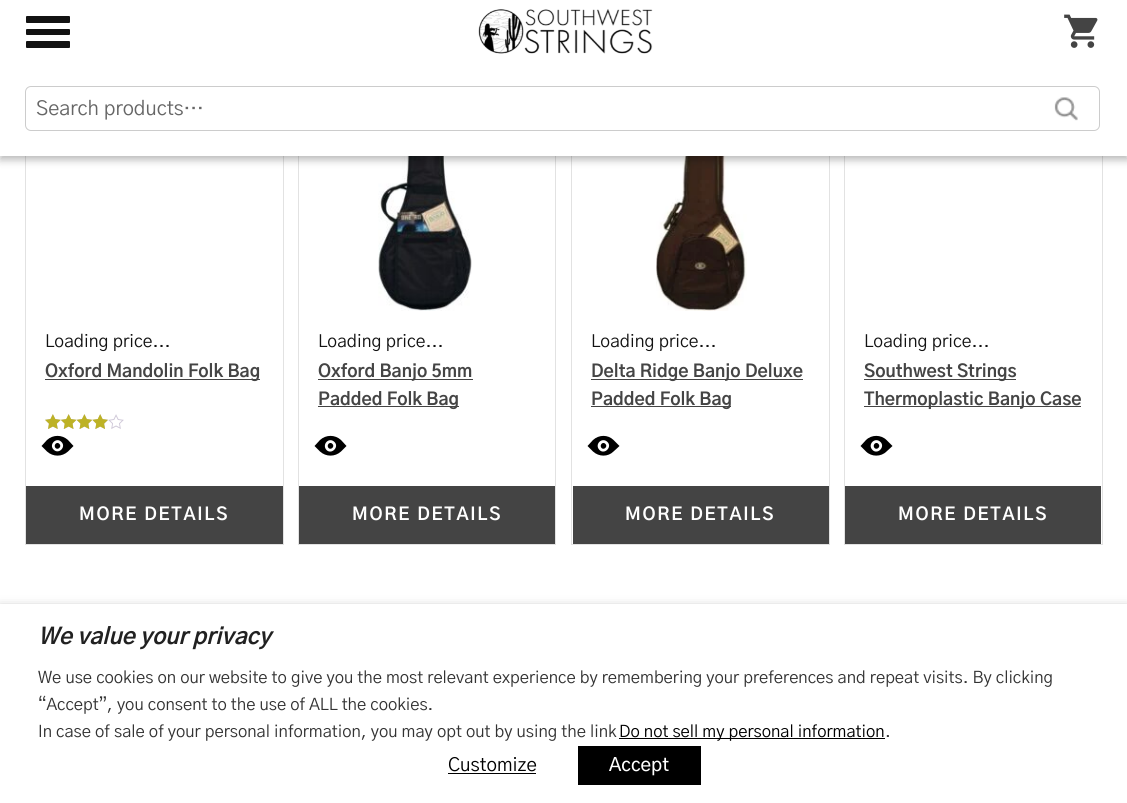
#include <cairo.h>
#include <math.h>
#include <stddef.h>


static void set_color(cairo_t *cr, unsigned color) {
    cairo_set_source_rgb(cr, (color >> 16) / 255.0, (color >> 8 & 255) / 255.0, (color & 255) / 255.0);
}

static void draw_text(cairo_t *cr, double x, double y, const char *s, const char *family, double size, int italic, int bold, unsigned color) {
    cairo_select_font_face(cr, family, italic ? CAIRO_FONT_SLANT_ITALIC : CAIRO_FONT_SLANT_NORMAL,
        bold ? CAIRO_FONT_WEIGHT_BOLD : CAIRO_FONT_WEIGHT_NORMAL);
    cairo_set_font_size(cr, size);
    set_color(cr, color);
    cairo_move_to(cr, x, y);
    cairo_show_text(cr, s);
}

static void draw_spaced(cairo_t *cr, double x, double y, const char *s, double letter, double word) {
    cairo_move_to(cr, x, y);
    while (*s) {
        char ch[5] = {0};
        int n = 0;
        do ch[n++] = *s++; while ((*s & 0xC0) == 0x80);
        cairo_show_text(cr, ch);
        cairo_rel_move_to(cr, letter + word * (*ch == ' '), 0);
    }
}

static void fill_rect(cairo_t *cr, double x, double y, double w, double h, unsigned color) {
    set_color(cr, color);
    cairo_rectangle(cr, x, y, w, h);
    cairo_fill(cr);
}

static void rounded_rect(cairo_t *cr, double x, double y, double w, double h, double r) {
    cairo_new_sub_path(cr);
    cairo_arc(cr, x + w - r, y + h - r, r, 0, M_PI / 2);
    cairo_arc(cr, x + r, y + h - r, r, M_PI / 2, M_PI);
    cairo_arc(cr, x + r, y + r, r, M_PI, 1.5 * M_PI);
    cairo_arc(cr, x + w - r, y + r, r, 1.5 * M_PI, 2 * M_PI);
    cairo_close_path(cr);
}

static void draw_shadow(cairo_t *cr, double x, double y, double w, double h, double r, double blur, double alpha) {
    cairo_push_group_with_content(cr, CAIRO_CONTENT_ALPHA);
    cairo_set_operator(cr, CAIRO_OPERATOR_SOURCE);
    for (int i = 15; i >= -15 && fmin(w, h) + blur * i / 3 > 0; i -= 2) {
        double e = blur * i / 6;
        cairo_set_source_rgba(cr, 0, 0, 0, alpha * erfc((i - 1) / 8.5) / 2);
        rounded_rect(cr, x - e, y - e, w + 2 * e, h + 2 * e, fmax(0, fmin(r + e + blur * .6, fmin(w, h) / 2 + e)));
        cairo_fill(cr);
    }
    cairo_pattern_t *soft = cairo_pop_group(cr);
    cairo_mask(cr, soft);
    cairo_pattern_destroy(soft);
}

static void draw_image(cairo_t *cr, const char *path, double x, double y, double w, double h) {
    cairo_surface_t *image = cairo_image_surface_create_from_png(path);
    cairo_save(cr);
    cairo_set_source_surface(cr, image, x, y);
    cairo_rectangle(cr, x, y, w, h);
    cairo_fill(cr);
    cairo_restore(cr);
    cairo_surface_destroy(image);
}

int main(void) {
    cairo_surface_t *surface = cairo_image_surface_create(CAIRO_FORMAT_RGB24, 1127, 803);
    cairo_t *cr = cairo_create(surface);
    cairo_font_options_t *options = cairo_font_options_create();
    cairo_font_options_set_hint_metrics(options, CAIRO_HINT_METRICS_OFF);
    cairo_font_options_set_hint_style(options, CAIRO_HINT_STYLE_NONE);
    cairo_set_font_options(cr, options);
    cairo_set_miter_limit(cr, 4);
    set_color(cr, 0xFFFFFF);
    cairo_paint(cr);
    cairo_rectangle(cr, 25.5, 60.5, 258, 484);
    set_color(cr, 0xE2E2E2);
    cairo_set_line_width(cr, 1);
    cairo_stroke(cr);
    cairo_rectangle(cr, 298.5, 60.5, 257, 484);
    cairo_stroke(cr);
    draw_image(cr, "assets/img6.png", 378, 156, 94, 155);
    cairo_rectangle(cr, 571.5, 60.5, 258, 484);
    cairo_stroke(cr);
    draw_image(cr, "assets/img7.png", 656, 156, 91, 155);
    cairo_rectangle(cr, 844.5, 60.5, 258, 484);
    cairo_stroke(cr);
    set_color(cr, 0x000000);
    draw_shadow(cr, 0, 4, 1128, 156, 0, 4, 0.27);
    fill_rect(cr, 0, 0, 1127, 156, 0xFFFFFF);
    set_color(cr, 0x121212);
    rounded_rect(cr, 26, 29, 44, 6, 1);
    cairo_fill(cr);
    rounded_rect(cr, 26, 16, 44, 7, 1);
    cairo_fill(cr);
    rounded_rect(cr, 26, 41, 44, 7, 1);
    cairo_fill(cr);
    draw_image(cr, "assets/img1.png", 478, 9, 175, 45);
    draw_image(cr, "assets/img2.png", 1064, 14, 34, 34);
    rounded_rect(cr, 25.5, 86.5, 1074, 44, 5.5);
    set_color(cr, 0xCCCCCC);
    cairo_stroke(cr);
    draw_text(cr, 36, 115, "Search products…", "Gothic A1", 20, 0, 0, 0x666666);
    draw_image(cr, "assets/img3.png", 1054, 97, 24, 24);
    draw_text(cr, 45, 347, "Loading price...", "Gothic A1", 17.5, 0, 0, 0x121212);
    fill_rect(cr, 45, 379, 215, 1, 0x444444);
    draw_text(cr, 45, 377, "Oxford Mandolin Folk Bag", "Gothic A1", 17.5, 0, 1, 0x444444);
    draw_image(cr, "assets/img4.png", 45, 414, 79, 15);
    draw_image(cr, "assets/img5.png", 45, 414, 63, 15);
    set_color(cr, 0x000000);
    cairo_new_path(cr);
    cairo_move_to(cr, 68, 440);
    cairo_line_to(cr, 73.5, 446);
    cairo_line_to(cr, 68, 451.5);
    cairo_curve_to(cr, 62, 457, 53, 457, 47, 451.5);
    cairo_line_to(cr, 41.5, 446);
    cairo_line_to(cr, 47, 440);
    cairo_curve_to(cr, 53, 434.5, 62, 434.5, 68, 440);
    cairo_close_path(cr);
    cairo_fill(cr);
    set_color(cr, 0xFFFFFF);
    cairo_new_path(cr);
    cairo_move_to(cr, 61.5, 442);
    cairo_curve_to(cr, 66.5, 447, 58.5, 455, 53.5, 449.5);
    cairo_curve_to(cr, 48.5, 444.5, 56.5, 436.5, 61.5, 442);
    cairo_close_path(cr);
    cairo_fill(cr);
    set_color(cr, 0x000000);
    cairo_new_path(cr);
    cairo_move_to(cr, 59.5, 444);
    cairo_curve_to(cr, 62, 446.5, 58, 450.5, 55.5, 448);
    cairo_curve_to(cr, 53, 445, 57, 441, 59.5, 444);
    cairo_close_path(cr);
    cairo_fill(cr);
    fill_rect(cr, 26, 486, 257, 58, 0x444444);
    set_color(cr, 0xFFFFFF);
    draw_spaced(cr, 79, 520, "MORE DETAILS", 1.75, 0);
    draw_text(cr, 318, 347, "Loading price...", "Gothic A1", 17.5, 0, 0, 0x121212);
    fill_rect(cr, 318, 379, 155, 1, 0x444444);
    draw_text(cr, 318, 377, "Oxford Banjo 5mm", "Gothic A1", 17.5, 0, 1, 0x444444);
    fill_rect(cr, 318, 406, 141, 1, 0x444444);
    draw_text(cr, 318, 405, "Padded Folk Bag", "Gothic A1", 17.5, 0, 1, 0x444444);
    set_color(cr, 0x000000);
    cairo_new_path(cr);
    cairo_move_to(cr, 341, 440);
    cairo_line_to(cr, 346.5, 446);
    cairo_line_to(cr, 341, 451.5);
    cairo_curve_to(cr, 335, 457, 326, 457, 320, 451.5);
    cairo_line_to(cr, 314.5, 446);
    cairo_line_to(cr, 320, 440);
    cairo_curve_to(cr, 326, 434.5, 335, 434.5, 341, 440);
    cairo_close_path(cr);
    cairo_fill(cr);
    set_color(cr, 0xFFFFFF);
    cairo_new_path(cr);
    cairo_move_to(cr, 334.5, 442);
    cairo_curve_to(cr, 339.5, 447, 331.5, 455, 326.5, 450);
    cairo_curve_to(cr, 321.5, 444.5, 329, 436.5, 334.5, 442);
    cairo_close_path(cr);
    cairo_fill(cr);
    set_color(cr, 0x000000);
    cairo_new_path(cr);
    cairo_move_to(cr, 332.5, 444);
    cairo_curve_to(cr, 335, 446.5, 331, 450.5, 328.5, 448);
    cairo_curve_to(cr, 326, 445, 330, 441, 332.5, 444);
    cairo_close_path(cr);
    cairo_fill(cr);
    fill_rect(cr, 299, 486, 256, 58, 0x444444);
    set_color(cr, 0xFFFFFF);
    draw_spaced(cr, 352, 520, "MORE DETAILS", 1.75, 0);
    draw_text(cr, 591, 347, "Loading price...", "Gothic A1", 17.5, 0, 0, 0x121212);
    fill_rect(cr, 591, 379, 212, 1, 0x444444);
    draw_text(cr, 591, 377, "Delta Ridge Banjo Deluxe", "Gothic A1", 17.5, 0, 1, 0x444444);
    fill_rect(cr, 591, 406, 140, 1, 0x444444);
    draw_text(cr, 591, 405, "Padded Folk Bag", "Gothic A1", 17.5, 0, 1, 0x444444);
    set_color(cr, 0x000000);
    cairo_new_path(cr);
    cairo_move_to(cr, 613.5, 440);
    cairo_line_to(cr, 619.5, 446);
    cairo_line_to(cr, 613.5, 451.5);
    cairo_curve_to(cr, 608, 457, 599, 457, 593, 451.5);
    cairo_line_to(cr, 587.5, 446);
    cairo_line_to(cr, 593, 440);
    cairo_curve_to(cr, 599, 434.5, 608, 434.5, 613.5, 440);
    cairo_close_path(cr);
    cairo_fill(cr);
    set_color(cr, 0xFFFFFF);
    cairo_new_path(cr);
    cairo_move_to(cr, 607.5, 442);
    cairo_curve_to(cr, 612.5, 447, 604.5, 455, 599.5, 450);
    cairo_curve_to(cr, 594, 444.5, 602, 436.5, 607.5, 442);
    cairo_close_path(cr);
    cairo_fill(cr);
    set_color(cr, 0x000000);
    cairo_new_path(cr);
    cairo_move_to(cr, 605.5, 444);
    cairo_curve_to(cr, 608, 446.5, 604, 450.5, 601.5, 448);
    cairo_curve_to(cr, 599, 445, 603, 441, 605.5, 444);
    cairo_close_path(cr);
    cairo_fill(cr);
    fill_rect(cr, 573, 486, 256, 58, 0x444444);
    set_color(cr, 0xFFFFFF);
    draw_spaced(cr, 625, 520, "MORE DETAILS", 1.75, 0);
    draw_text(cr, 864, 347, "Loading price...", "Gothic A1", 17.5, 0, 0, 0x121212);
    fill_rect(cr, 864, 379, 152, 1, 0x444444);
    draw_text(cr, 864, 377, "Southwest Strings", "Gothic A1", 17.5, 0, 1, 0x444444);
    fill_rect(cr, 864, 406, 217, 1, 0x444444);
    draw_text(cr, 864, 405, "Thermoplastic Banjo Case", "Gothic A1", 17.5, 0, 1, 0x444444);
    set_color(cr, 0x000000);
    cairo_new_path(cr);
    cairo_move_to(cr, 886.5, 440);
    cairo_line_to(cr, 892.5, 446);
    cairo_line_to(cr, 886.5, 451.5);
    cairo_curve_to(cr, 881, 457, 871.5, 457, 866, 451.5);
    cairo_line_to(cr, 860.5, 446);
    cairo_line_to(cr, 866, 440);
    cairo_curve_to(cr, 871.5, 434.5, 881, 434.5, 886.5, 440);
    cairo_close_path(cr);
    cairo_fill(cr);
    set_color(cr, 0xFFFFFF);
    cairo_new_path(cr);
    cairo_move_to(cr, 880.5, 442);
    cairo_curve_to(cr, 885.5, 447, 877.5, 455, 872.5, 450);
    cairo_curve_to(cr, 867, 444.5, 875, 436.5, 880.5, 442);
    cairo_close_path(cr);
    cairo_fill(cr);
    set_color(cr, 0x000000);
    cairo_new_path(cr);
    cairo_move_to(cr, 878.5, 444);
    cairo_curve_to(cr, 881, 446.5, 877, 450.5, 874.5, 448);
    cairo_curve_to(cr, 872, 445, 876, 441, 878.5, 444);
    cairo_close_path(cr);
    cairo_fill(cr);
    fill_rect(cr, 845, 486, 256, 58, 0x444444);
    set_color(cr, 0xFFFFFF);
    draw_spaced(cr, 898, 520, "MORE DETAILS", 1.75, 0);
    set_color(cr, 0x000000);
    draw_shadow(cr, 0, 610, 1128, 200, 0, 6, 0.5);
    fill_rect(cr, 0, 604, 1127, 199, 0xFFFFFF);
    cairo_select_font_face(cr, "Gothic A1", CAIRO_FONT_SLANT_ITALIC, CAIRO_FONT_WEIGHT_BOLD);
    cairo_set_font_size(cr, 22.5);
    set_color(cr, 0x212121);
    draw_spaced(cr, 38, 644, "We value your privacy", 0, -0.5);
    draw_text(cr, 38, 683, "We use cookies on our website to give you the most relevant experience by remembering your preferences and repeat visits. By clicking", "Gothic A1", 16.67, 0, 0, 0x333333);
    draw_text(cr, 38, 710, "“Accept”, you consent to the use of ALL the cookies.", "Gothic A1", 16.67, 0, 0, 0x333333);
    draw_text(cr, 38, 737, "In case of sale of your personal information, you may opt out by using the link", "Gothic A1", 16.67, 0, 0, 0x333333);
    fill_rect(cr, 619, 738, 266, 1, 0x000000);
    draw_text(cr, 619, 737, "Do not sell my personal information", "Gothic A1", 16.67, 0, 0, 0x000000);
    draw_text(cr, 885, 737, ".", "Gothic A1", 16.67, 0, 0, 0x333333);
    draw_text(cr, 448, 771, "Customize", "Gothic A1", 18.75, 0, 0, 0x000000);
    fill_rect(cr, 448, 773, 88, 1, 0x000000);
    fill_rect(cr, 578, 746, 123, 39, 0x000000);
    draw_text(cr, 609, 771, "Accept", "Gothic A1 Medium", 18.75, 0, 0, 0xFFFFFF);
    cairo_surface_write_to_png(surface, "output.png");
    cairo_font_options_destroy(options);
    cairo_destroy(cr);
    cairo_surface_destroy(surface);
    return 0;
}
